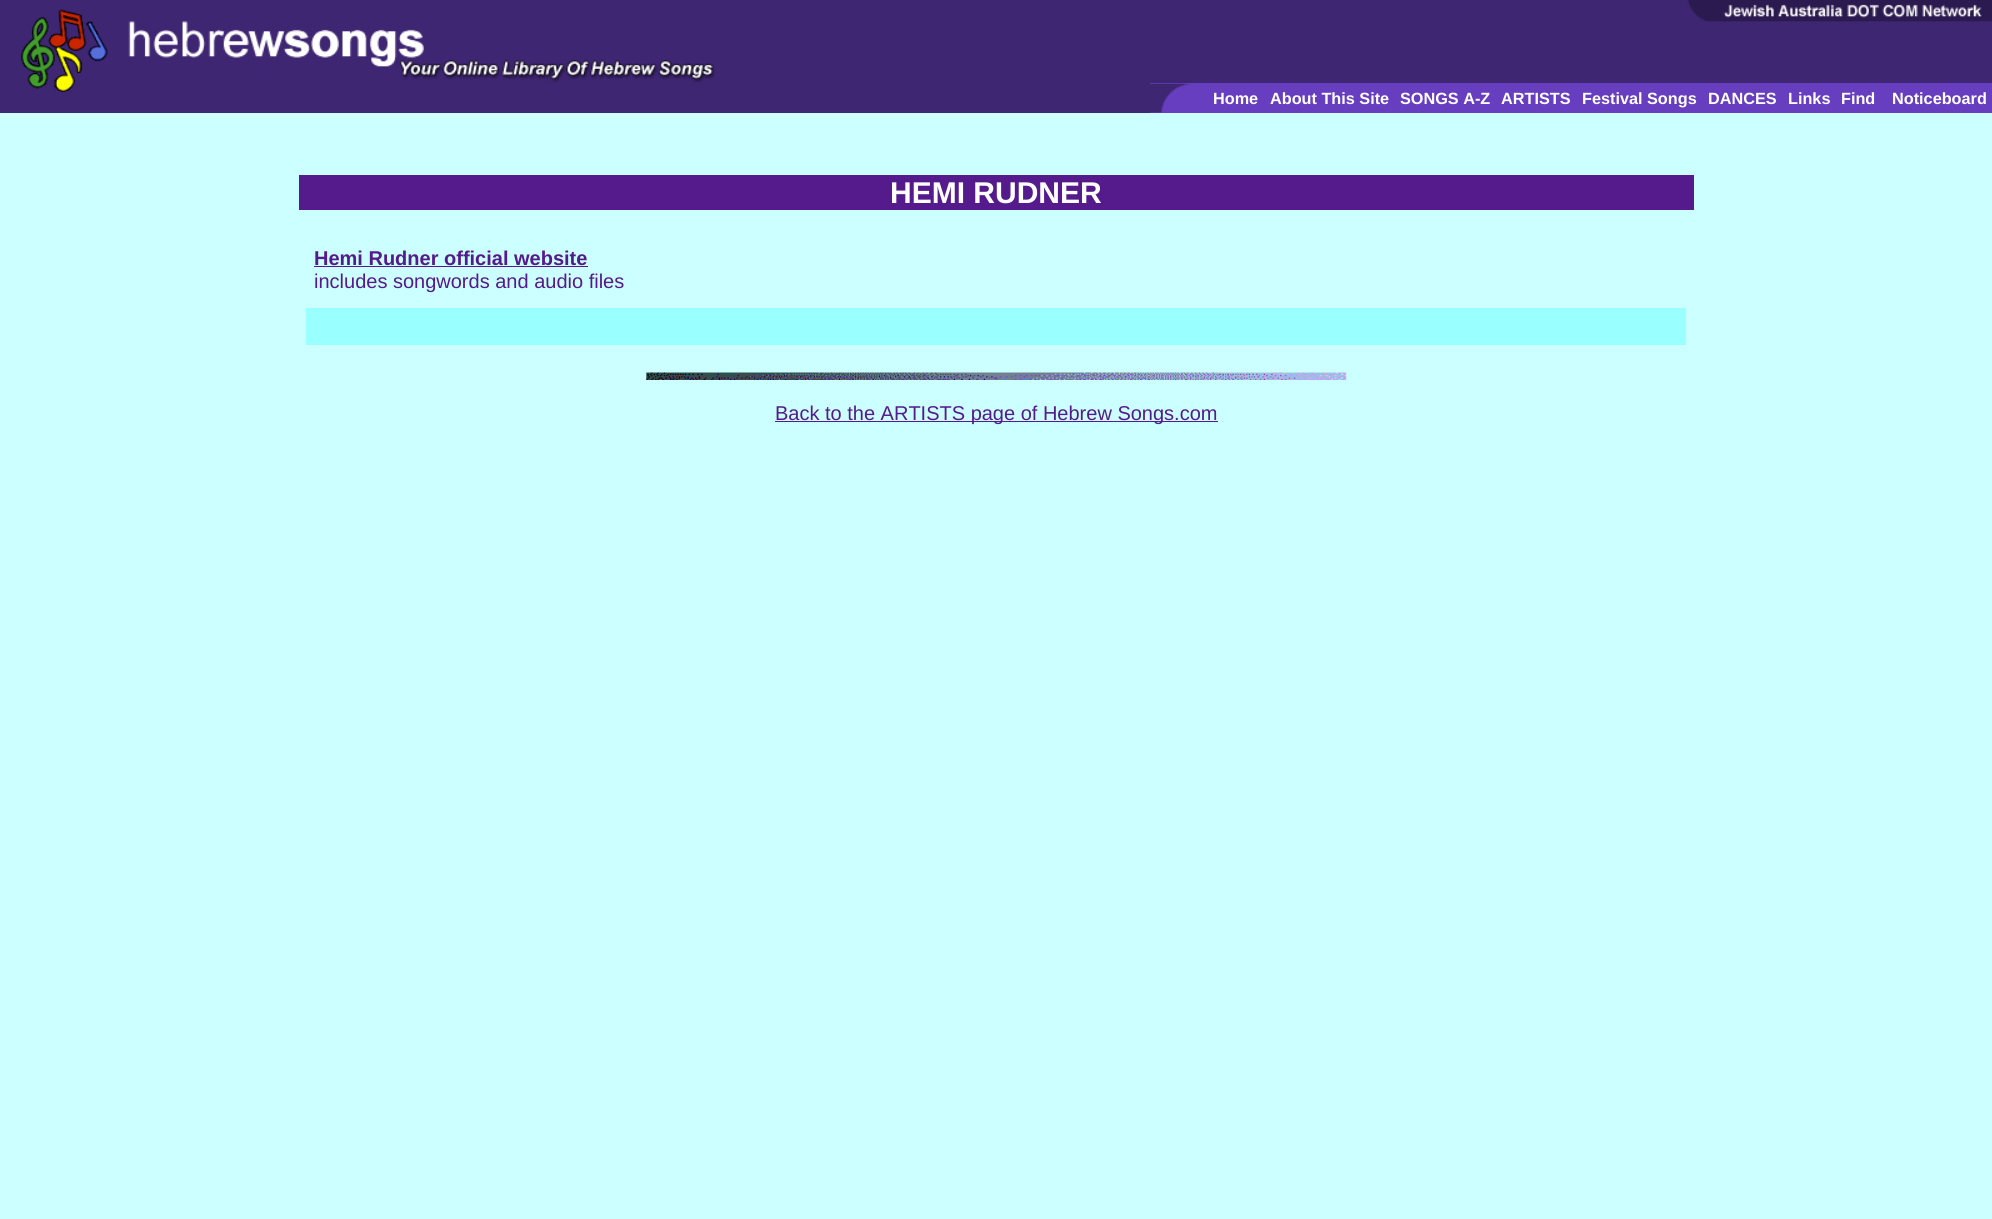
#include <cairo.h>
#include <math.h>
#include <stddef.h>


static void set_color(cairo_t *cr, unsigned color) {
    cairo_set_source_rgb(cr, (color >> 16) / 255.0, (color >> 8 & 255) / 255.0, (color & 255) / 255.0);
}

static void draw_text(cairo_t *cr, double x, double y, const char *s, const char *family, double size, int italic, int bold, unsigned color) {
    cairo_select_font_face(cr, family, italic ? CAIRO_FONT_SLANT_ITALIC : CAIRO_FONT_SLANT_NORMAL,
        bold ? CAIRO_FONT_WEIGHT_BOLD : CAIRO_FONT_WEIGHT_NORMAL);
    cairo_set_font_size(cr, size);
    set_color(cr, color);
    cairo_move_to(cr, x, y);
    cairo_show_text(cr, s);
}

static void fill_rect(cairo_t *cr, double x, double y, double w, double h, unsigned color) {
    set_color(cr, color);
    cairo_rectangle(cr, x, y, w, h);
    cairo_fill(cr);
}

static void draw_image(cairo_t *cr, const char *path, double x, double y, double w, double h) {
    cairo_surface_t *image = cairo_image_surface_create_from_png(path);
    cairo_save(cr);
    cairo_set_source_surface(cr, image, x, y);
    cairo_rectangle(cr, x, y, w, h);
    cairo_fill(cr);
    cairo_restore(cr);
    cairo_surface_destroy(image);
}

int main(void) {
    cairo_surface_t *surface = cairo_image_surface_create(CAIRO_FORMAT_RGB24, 1992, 1219);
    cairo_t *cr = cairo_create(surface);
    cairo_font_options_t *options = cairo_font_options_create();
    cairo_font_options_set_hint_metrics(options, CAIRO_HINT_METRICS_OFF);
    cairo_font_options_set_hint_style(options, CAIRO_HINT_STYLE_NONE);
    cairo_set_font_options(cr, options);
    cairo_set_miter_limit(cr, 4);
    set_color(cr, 0xCCFFFF);
    cairo_paint(cr);
    fill_rect(cr, 0, 0, 1992, 113, 0x3F2673);
    draw_image(cr, "assets/img1.png", 21, 9, 87, 83);
    draw_image(cr, "assets/img2.png", 128, 21, 60, 4);
    draw_image(cr, "assets/img3.png", 1687, 0, 305, 22);
    draw_image(cr, "assets/img4.png", 128, 25, 587, 58);
    fill_rect(cr, 1150, 83, 842, 30, 0x683EC0);
    draw_image(cr, "assets/img5.png", 1150, 83, 41, 30);
    draw_text(cr, 1213, 104, "Home", "Liberation Sans", 16.25, 0, 1, 0xFFFFFF);
    draw_text(cr, 1270, 104, "About This Site", "Liberation Sans", 16.25, 0, 1, 0xFFFFFF);
    draw_text(cr, 1400, 104, "SONGS A-Z", "Liberation Sans", 16.25, 0, 1, 0xFFFFFF);
    draw_text(cr, 1501, 104, "ARTISTS", "Liberation Sans", 16.25, 0, 1, 0xFFFFFF);
    draw_text(cr, 1582, 104, "Festival Songs", "Liberation Sans", 16.25, 0, 1, 0xFFFFFF);
    draw_text(cr, 1708, 104, "DANCES", "Liberation Sans", 16.25, 0, 1, 0xFFFFFF);
    draw_text(cr, 1788, 104, "Links", "Liberation Sans", 16.25, 0, 1, 0xFFFFFF);
    draw_text(cr, 1841, 104, "Find", "Liberation Sans", 16.25, 0, 1, 0xFFFFFF);
    draw_text(cr, 1892, 104, "Noticeboard", "Liberation Sans", 16.25, 0, 1, 0xFFFFFF);
    fill_rect(cr, 299, 175, 1395, 35, 0x551A8B);
    draw_text(cr, 890, 203, "HEMI RUDNER", "Liberation Sans", 30, 0, 1, 0xFFFFFF);
    draw_text(cr, 314, 265, "Hemi Rudner official website", "Liberation Sans", 20, 0, 1, 0x551A8B);
    fill_rect(cr, 314, 266, 274, 1, 0x551A8B);
    draw_text(cr, 314, 288, "includes songwords and audio files", "Liberation Sans", 20, 0, 0, 0x551A8B);
    fill_rect(cr, 306, 308, 1380, 37, 0x99FFFF);
    draw_image(cr, "assets/img6.png", 646, 372, 701, 8);
    fill_rect(cr, 775, 421, 443, 1, 0x551A8B);
    draw_text(cr, 775, 420, "Back to the ARTISTS page of Hebrew Songs.com", "Liberation Sans", 20, 0, 0, 0x551A8B);
    cairo_surface_write_to_png(surface, "output.png");
    cairo_font_options_destroy(options);
    cairo_destroy(cr);
    cairo_surface_destroy(surface);
    return 0;
}
